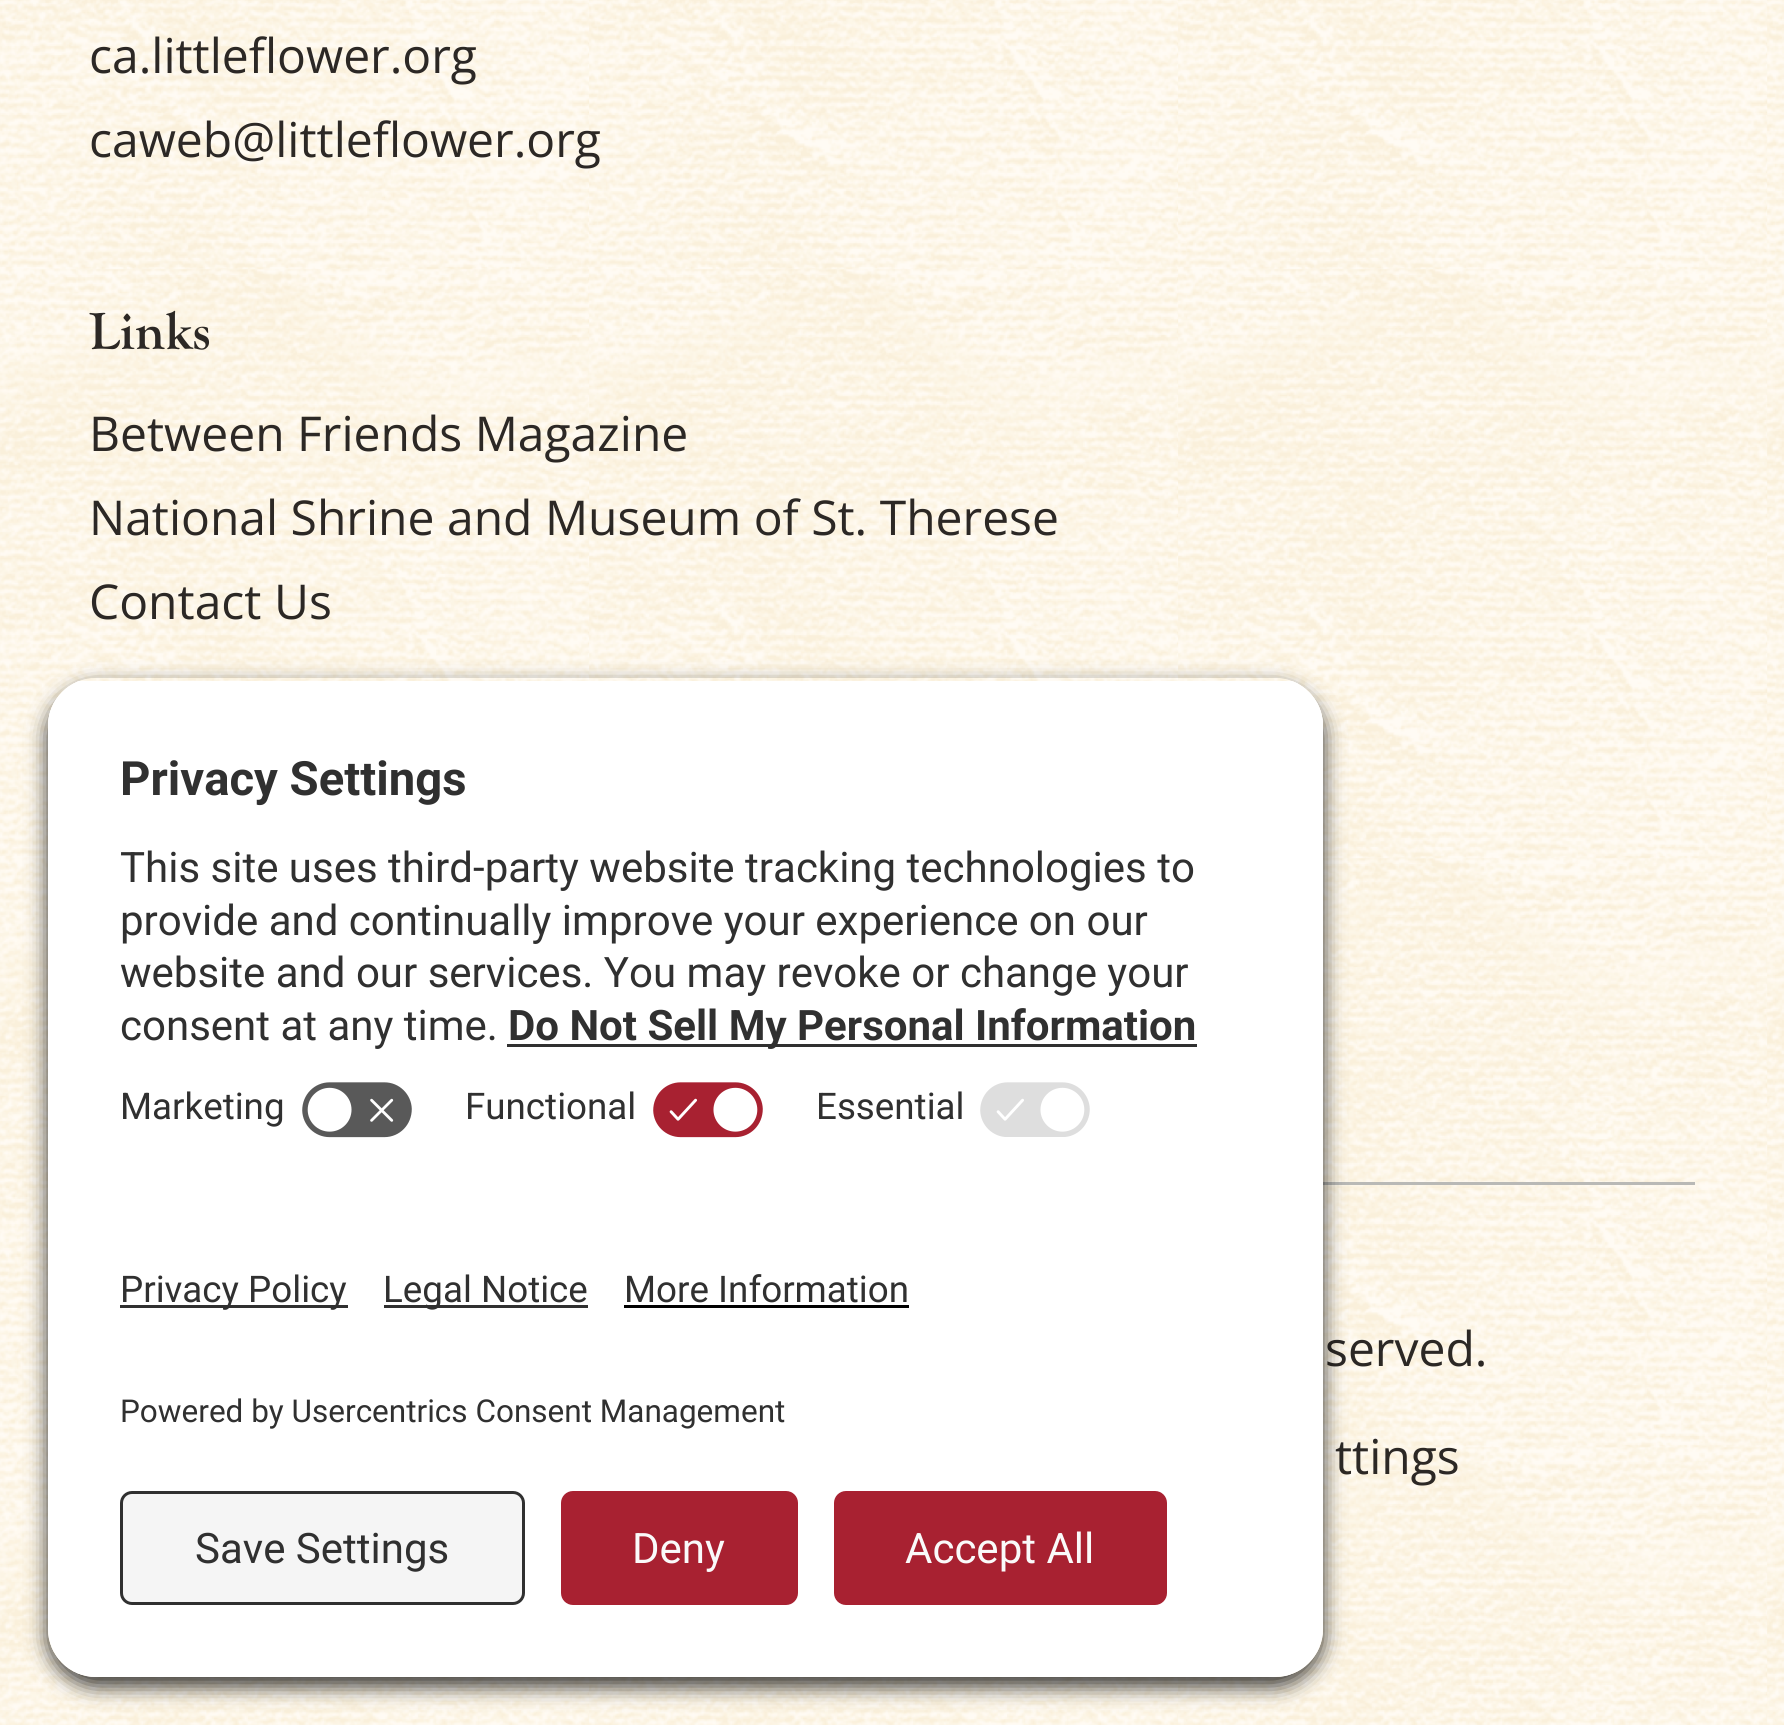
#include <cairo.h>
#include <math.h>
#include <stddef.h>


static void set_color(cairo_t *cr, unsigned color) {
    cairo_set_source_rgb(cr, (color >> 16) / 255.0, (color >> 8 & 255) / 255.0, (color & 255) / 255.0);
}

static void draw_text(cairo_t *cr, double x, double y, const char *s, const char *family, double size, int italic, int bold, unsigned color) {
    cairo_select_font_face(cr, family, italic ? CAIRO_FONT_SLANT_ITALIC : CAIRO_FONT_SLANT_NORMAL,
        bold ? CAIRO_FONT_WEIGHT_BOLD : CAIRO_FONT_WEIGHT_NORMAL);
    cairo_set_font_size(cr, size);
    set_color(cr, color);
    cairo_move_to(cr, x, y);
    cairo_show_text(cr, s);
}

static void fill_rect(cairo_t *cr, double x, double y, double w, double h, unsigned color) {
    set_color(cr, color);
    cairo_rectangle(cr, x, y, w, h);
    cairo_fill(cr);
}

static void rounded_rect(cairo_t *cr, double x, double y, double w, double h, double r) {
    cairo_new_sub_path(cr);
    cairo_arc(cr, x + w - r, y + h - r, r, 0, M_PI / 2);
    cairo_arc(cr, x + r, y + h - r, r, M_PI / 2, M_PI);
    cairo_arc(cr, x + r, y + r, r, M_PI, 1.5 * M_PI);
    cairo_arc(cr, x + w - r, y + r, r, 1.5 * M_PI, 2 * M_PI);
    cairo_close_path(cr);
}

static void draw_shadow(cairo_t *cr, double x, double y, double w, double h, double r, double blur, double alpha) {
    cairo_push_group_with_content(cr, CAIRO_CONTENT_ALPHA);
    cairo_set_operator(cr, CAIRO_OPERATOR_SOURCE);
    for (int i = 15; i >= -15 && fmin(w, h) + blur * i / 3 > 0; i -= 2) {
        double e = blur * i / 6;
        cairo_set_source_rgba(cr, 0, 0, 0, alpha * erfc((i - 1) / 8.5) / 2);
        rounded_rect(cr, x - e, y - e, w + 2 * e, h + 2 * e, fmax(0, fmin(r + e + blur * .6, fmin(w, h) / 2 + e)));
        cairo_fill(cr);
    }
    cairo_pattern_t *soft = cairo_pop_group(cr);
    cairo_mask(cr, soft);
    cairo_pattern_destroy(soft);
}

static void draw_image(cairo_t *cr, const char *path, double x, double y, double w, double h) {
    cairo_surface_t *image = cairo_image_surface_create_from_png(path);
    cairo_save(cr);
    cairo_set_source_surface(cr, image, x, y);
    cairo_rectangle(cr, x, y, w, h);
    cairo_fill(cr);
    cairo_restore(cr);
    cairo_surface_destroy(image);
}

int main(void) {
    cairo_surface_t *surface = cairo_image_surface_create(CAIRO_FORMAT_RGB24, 1784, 1725);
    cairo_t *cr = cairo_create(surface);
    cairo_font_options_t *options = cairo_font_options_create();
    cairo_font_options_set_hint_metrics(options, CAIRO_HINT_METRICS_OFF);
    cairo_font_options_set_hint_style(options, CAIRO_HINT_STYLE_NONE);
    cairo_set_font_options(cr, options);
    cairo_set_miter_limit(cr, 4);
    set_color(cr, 0xFFFFFF);
    cairo_paint(cr);
    draw_image(cr, "assets/img1.png", 0, 0, 1784, 1725);
    draw_text(cr, 89, 73, "ca.littleflower.org", "Open Sans", 48, 0, 0, 0x2C2825);
    draw_text(cr, 89, 157, "caweb@littleflower.org", "Open Sans", 48, 0, 0, 0x2C2825);
    draw_text(cr, 89, 349, "Links", "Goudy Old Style", 54, 0, 1, 0x2C2825);
    draw_text(cr, 89, 451, "Between Friends Magazine", "Open Sans", 48, 0, 0, 0x2C2825);
    draw_text(cr, 89, 535, "National Shrine and Museum of St. Therese", "Open Sans", 48, 0, 0, 0x2C2825);
    draw_text(cr, 89, 619, "Contact Us", "Open Sans", 48, 0, 0, 0x2C2825);
    fill_rect(cr, 1323, 1182, 372, 3, 0xB9B9B6);
    draw_text(cr, 1325, 1366, "served.", "Open Sans", 48, 0, 0, 0x2C2825);
    draw_text(cr, 1335, 1474, "ttings", "Open Sans", 48, 0, 0, 0x2C2825);
    cairo_save(cr);
    cairo_set_fill_rule(cr, CAIRO_FILL_RULE_EVEN_ODD);
    cairo_new_path(cr);
    cairo_move_to(cr, 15, 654);
    cairo_line_to(cr, 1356, 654);
    cairo_line_to(cr, 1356, 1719);
    cairo_line_to(cr, 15, 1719);
    cairo_close_path(cr);
    cairo_move_to(cr, 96, 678);
    cairo_line_to(cr, 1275, 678);
    cairo_curve_to(cr, 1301.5, 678, 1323, 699.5, 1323, 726);
    cairo_line_to(cr, 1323, 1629);
    cairo_curve_to(cr, 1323, 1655.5, 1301.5, 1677, 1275, 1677);
    cairo_line_to(cr, 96, 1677);
    cairo_curve_to(cr, 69.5, 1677, 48, 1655.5, 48, 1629);
    cairo_line_to(cr, 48, 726);
    cairo_curve_to(cr, 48, 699.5, 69.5, 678, 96, 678);
    cairo_close_path(cr);
    cairo_clip(cr);
    set_color(cr, 0x000000);
    draw_shadow(cr, 48, 687, 1275, 999, 48, 10.5, 0.8);
    cairo_restore(cr);
    cairo_save(cr);
    cairo_new_path(cr);
    cairo_move_to(cr, 96, 678);
    cairo_line_to(cr, 1275, 678);
    cairo_curve_to(cr, 1301.5, 678, 1323, 699.5, 1323, 726);
    cairo_line_to(cr, 1323, 1185);
    cairo_line_to(cr, 48, 1185);
    cairo_line_to(cr, 48, 726);
    cairo_curve_to(cr, 48, 699.5, 69.5, 678, 96, 678);
    cairo_close_path(cr);
    cairo_clip(cr);
    fill_rect(cr, 48, 681, 1275, 504, 0xFFFFFF);
    fill_rect(cr, 48, 681, 1275, 384, 0xFFFFFF);
    cairo_restore(cr);
    draw_text(cr, 120, 795, "Privacy Settings", "Roboto", 47.25, 0, 1, 0x303030);
    draw_text(cr, 120, 882, "This site uses third-party website tracking technologies to", "Roboto", 42, 0, 0, 0x303030);
    draw_text(cr, 120, 935, "provide and continually improve your experience on our", "Roboto", 42, 0, 0, 0x303030);
    draw_text(cr, 120, 987, "website and our services. You may revoke or change your", "Roboto", 42, 0, 0, 0x303030);
    draw_text(cr, 120, 1040, "consent at any time.", "Roboto", 42, 0, 0, 0x303030);
    fill_rect(cr, 507, 1044, 690, 3, 0x303030);
    draw_text(cr, 508, 1040, "Do Not Sell My Personal Information", "Roboto", 42, 0, 1, 0x303030);
    draw_text(cr, 120, 1119, "Marketing", "Roboto", 36.75, 0, 0, 0x303030);
    draw_image(cr, "assets/img2.png", 302, 1082, 110, 56);
    draw_text(cr, 465, 1119, "Functional", "Roboto", 36.75, 0, 0, 0x303030);
    draw_image(cr, "assets/img3.png", 653, 1082, 110, 56);
    draw_text(cr, 816, 1119, "Essential", "Roboto", 36.75, 0, 0, 0x303030);
    draw_image(cr, "assets/img4.png", 980, 1082, 110, 55);
    set_color(cr, 0xFFFFFF);
    cairo_new_path(cr);
    cairo_move_to(cr, 48, 1185);
    cairo_line_to(cr, 1323, 1185);
    cairo_line_to(cr, 1323, 1629);
    cairo_curve_to(cr, 1323, 1655.5, 1301.5, 1677, 1275, 1677);
    cairo_line_to(cr, 96, 1677);
    cairo_curve_to(cr, 69.5, 1677, 48, 1655.5, 48, 1629);
    cairo_close_path(cr);
    cairo_fill(cr);
    fill_rect(cr, 120, 1305, 228, 3, 0x303030);
    draw_text(cr, 120, 1302, "Privacy Policy", "Roboto", 36.75, 0, 0, 0x303030);
    fill_rect(cr, 384, 1305, 204, 3, 0x303030);
    draw_text(cr, 383, 1302, "Legal Notice", "Roboto", 36.75, 0, 0, 0x303030);
    draw_text(cr, 624, 1302, "More Information", "Roboto", 36.75, 0, 0, 0x303030);
    fill_rect(cr, 624, 1305, 285, 3, 0x000000);
    draw_text(cr, 120, 1422, "Powered by Usercentrics Consent Management", "Roboto", 31.5, 0, 0, 0x303030);
    set_color(cr, 0xF5F5F5);
    rounded_rect(cr, 121.5, 1492.5, 402, 111, 10.5);
    cairo_fill_preserve(cr);
    set_color(cr, 0x303030);
    cairo_set_line_width(cr, 3);
    cairo_stroke(cr);
    draw_text(cr, 195, 1563, "Save Settings", "Roboto", 42, 0, 0, 0x303030);
    set_color(cr, 0xA82131);
    rounded_rect(cr, 561, 1491, 237, 114, 12);
    cairo_fill(cr);
    draw_text(cr, 632, 1563, "Deny", "Roboto", 42, 0, 0, 0xFAFAFA);
    set_color(cr, 0xA82131);
    rounded_rect(cr, 834, 1491, 333, 114, 12);
    cairo_fill(cr);
    draw_text(cr, 905, 1563, "Accept All", "Roboto", 42, 0, 0, 0xFAFAFA);
    cairo_surface_write_to_png(surface, "output.png");
    cairo_font_options_destroy(options);
    cairo_destroy(cr);
    cairo_surface_destroy(surface);
    return 0;
}
